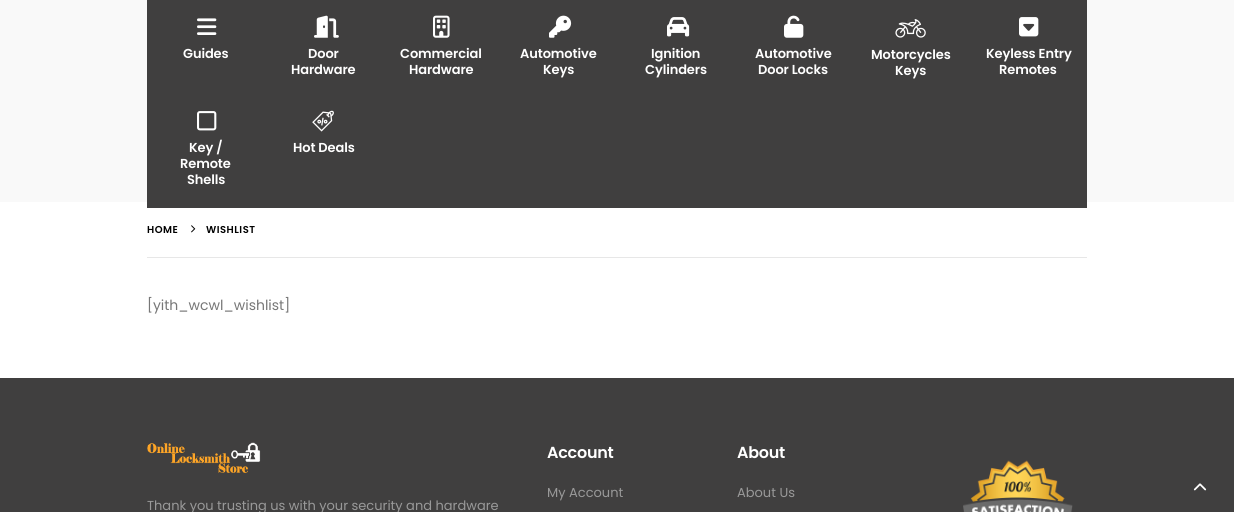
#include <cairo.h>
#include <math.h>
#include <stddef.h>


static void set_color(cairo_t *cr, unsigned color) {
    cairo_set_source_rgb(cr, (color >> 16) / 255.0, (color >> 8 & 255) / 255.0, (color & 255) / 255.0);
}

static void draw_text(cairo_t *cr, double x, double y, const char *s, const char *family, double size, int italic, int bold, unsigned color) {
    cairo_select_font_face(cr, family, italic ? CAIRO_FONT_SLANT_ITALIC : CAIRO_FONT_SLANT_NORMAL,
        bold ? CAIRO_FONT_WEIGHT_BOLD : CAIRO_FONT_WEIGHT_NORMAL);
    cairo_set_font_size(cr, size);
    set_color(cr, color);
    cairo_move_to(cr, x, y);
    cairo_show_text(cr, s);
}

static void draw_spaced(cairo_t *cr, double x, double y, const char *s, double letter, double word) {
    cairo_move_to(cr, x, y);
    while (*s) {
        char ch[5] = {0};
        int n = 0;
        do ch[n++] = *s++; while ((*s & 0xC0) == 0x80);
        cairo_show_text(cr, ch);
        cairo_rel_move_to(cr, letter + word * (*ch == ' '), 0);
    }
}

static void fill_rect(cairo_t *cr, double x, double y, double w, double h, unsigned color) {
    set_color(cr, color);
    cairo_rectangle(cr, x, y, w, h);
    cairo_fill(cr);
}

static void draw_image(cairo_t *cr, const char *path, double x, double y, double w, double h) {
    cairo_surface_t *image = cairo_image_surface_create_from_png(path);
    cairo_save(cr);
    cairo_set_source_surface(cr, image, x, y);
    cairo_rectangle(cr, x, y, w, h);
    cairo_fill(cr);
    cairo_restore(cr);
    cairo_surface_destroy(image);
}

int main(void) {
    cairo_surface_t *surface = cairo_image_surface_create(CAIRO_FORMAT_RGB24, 1234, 512);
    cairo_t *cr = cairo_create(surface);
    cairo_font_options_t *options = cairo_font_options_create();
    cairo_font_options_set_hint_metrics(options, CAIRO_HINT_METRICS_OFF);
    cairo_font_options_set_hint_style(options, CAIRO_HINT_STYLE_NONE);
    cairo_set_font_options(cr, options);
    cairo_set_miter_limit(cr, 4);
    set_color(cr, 0xFFFFFF);
    cairo_paint(cr);
    fill_rect(cr, 0, 0, 1234, 202, 0xF9F9F9);
    fill_rect(cr, 147, 0, 940, 208, 0x403F3F);
    draw_image(cr, "assets/img1.png", 197, 18, 20, 17);
    cairo_select_font_face(cr, "Poppins SemiBold", CAIRO_FONT_SLANT_NORMAL, CAIRO_FONT_WEIGHT_NORMAL);
    cairo_set_font_size(cr, 13);
    set_color(cr, 0xFFFFFF);
    draw_spaced(cr, 183, 58, "Guides", -0.1, 0);
    draw_image(cr, "assets/img2.png", 314, 15, 25, 23);
    draw_spaced(cr, 308, 58, "Door", -0.1, 0);
    draw_spaced(cr, 291, 74, "Hardware", -0.1, 0);
    draw_image(cr, "assets/img3.png", 433, 15, 17, 23);
    draw_spaced(cr, 400, 58, "Commercial", -0.1, 0);
    draw_spaced(cr, 409, 74, "Hardware", -0.1, 0);
    draw_image(cr, "assets/img4.png", 549, 15, 23, 23);
    draw_spaced(cr, 520, 58, "Automotive", -0.1, 0);
    draw_spaced(cr, 543, 74, "Keys", -0.1, 0);
    draw_image(cr, "assets/img5.png", 667, 17, 23, 20);
    draw_spaced(cr, 651, 58, "Ignition", -0.1, 0);
    draw_spaced(cr, 645, 74, "Cylinders", -0.1, 0);
    draw_image(cr, "assets/img6.png", 784, 15, 20, 23);
    draw_spaced(cr, 755, 58, "Automotive", -0.1, 0);
    draw_spaced(cr, 758, 74, "Door Locks", -0.1, 0);
    draw_image(cr, "assets/img7.png", 895, 19, 31, 19);
    draw_spaced(cr, 871, 59, "Motorcycles", -0.1, 0);
    draw_spaced(cr, 895, 75, "Keys", -0.1, 0);
    draw_image(cr, "assets/img8.png", 1019, 17, 20, 20);
    draw_spaced(cr, 986, 58, "Keyless Entry", -0.1, 0);
    draw_spaced(cr, 999, 74, "Remotes", -0.1, 0);
    draw_image(cr, "assets/img9.png", 197, 111, 20, 20);
    draw_spaced(cr, 189, 152, "Key /", -0.1, 0);
    draw_spaced(cr, 180, 168, "Remote", -0.1, 0);
    draw_spaced(cr, 187, 184, "Shells", -0.1, 0);
    draw_image(cr, "assets/img10.png", 312, 110, 22, 22);
    draw_spaced(cr, 293, 152, "Hot Deals", -0.1, 0);
    fill_rect(cr, 147, 257, 940, 1, 0xE7E7E7);
    cairo_set_font_size(cr, 10);
    set_color(cr, 0x000000);
    draw_spaced(cr, 147, 233, "HOME", 0.5, 0);
    draw_image(cr, "assets/img11.png", 191, 225, 5, 8);
    draw_spaced(cr, 206, 233, "WISHLIST", 0.5, 0);
    draw_text(cr, 147, 310, "[yith_wcwl_wishlist]", "Poppins", 14, 0, 0, 0x777777);
    fill_rect(cr, 0, 378, 1234, 134, 0x403F3F);
    draw_image(cr, "assets/img12.png", 147, 442, 114, 31);
    draw_text(cr, 147, 510, "Thank you trusting us with your security and hardware", "Poppins", 13, 0, 0, 0x999999);
    cairo_select_font_face(cr, "Poppins SemiBold", CAIRO_FONT_SLANT_NORMAL, CAIRO_FONT_WEIGHT_NORMAL);
    cairo_set_font_size(cr, 16);
    set_color(cr, 0xFFFFFF);
    draw_spaced(cr, 547, 458, "Account", -0.25, 0);
    draw_text(cr, 547, 497, "My Account", "Poppins", 13, 0, 0, 0x999999);
    cairo_select_font_face(cr, "Poppins SemiBold", CAIRO_FONT_SLANT_NORMAL, CAIRO_FONT_WEIGHT_NORMAL);
    cairo_set_font_size(cr, 16);
    set_color(cr, 0xFFFFFF);
    draw_spaced(cr, 737, 458, "About", -0.25, 0);
    draw_text(cr, 737, 497, "About Us", "Poppins", 13, 0, 0, 0x999999);
    draw_image(cr, "assets/img13.png", 963, 460, 110, 52);
    draw_image(cr, "assets/img14.png", 1193, 483, 14, 8);
    cairo_surface_write_to_png(surface, "output.png");
    cairo_font_options_destroy(options);
    cairo_destroy(cr);
    cairo_surface_destroy(surface);
    return 0;
}
